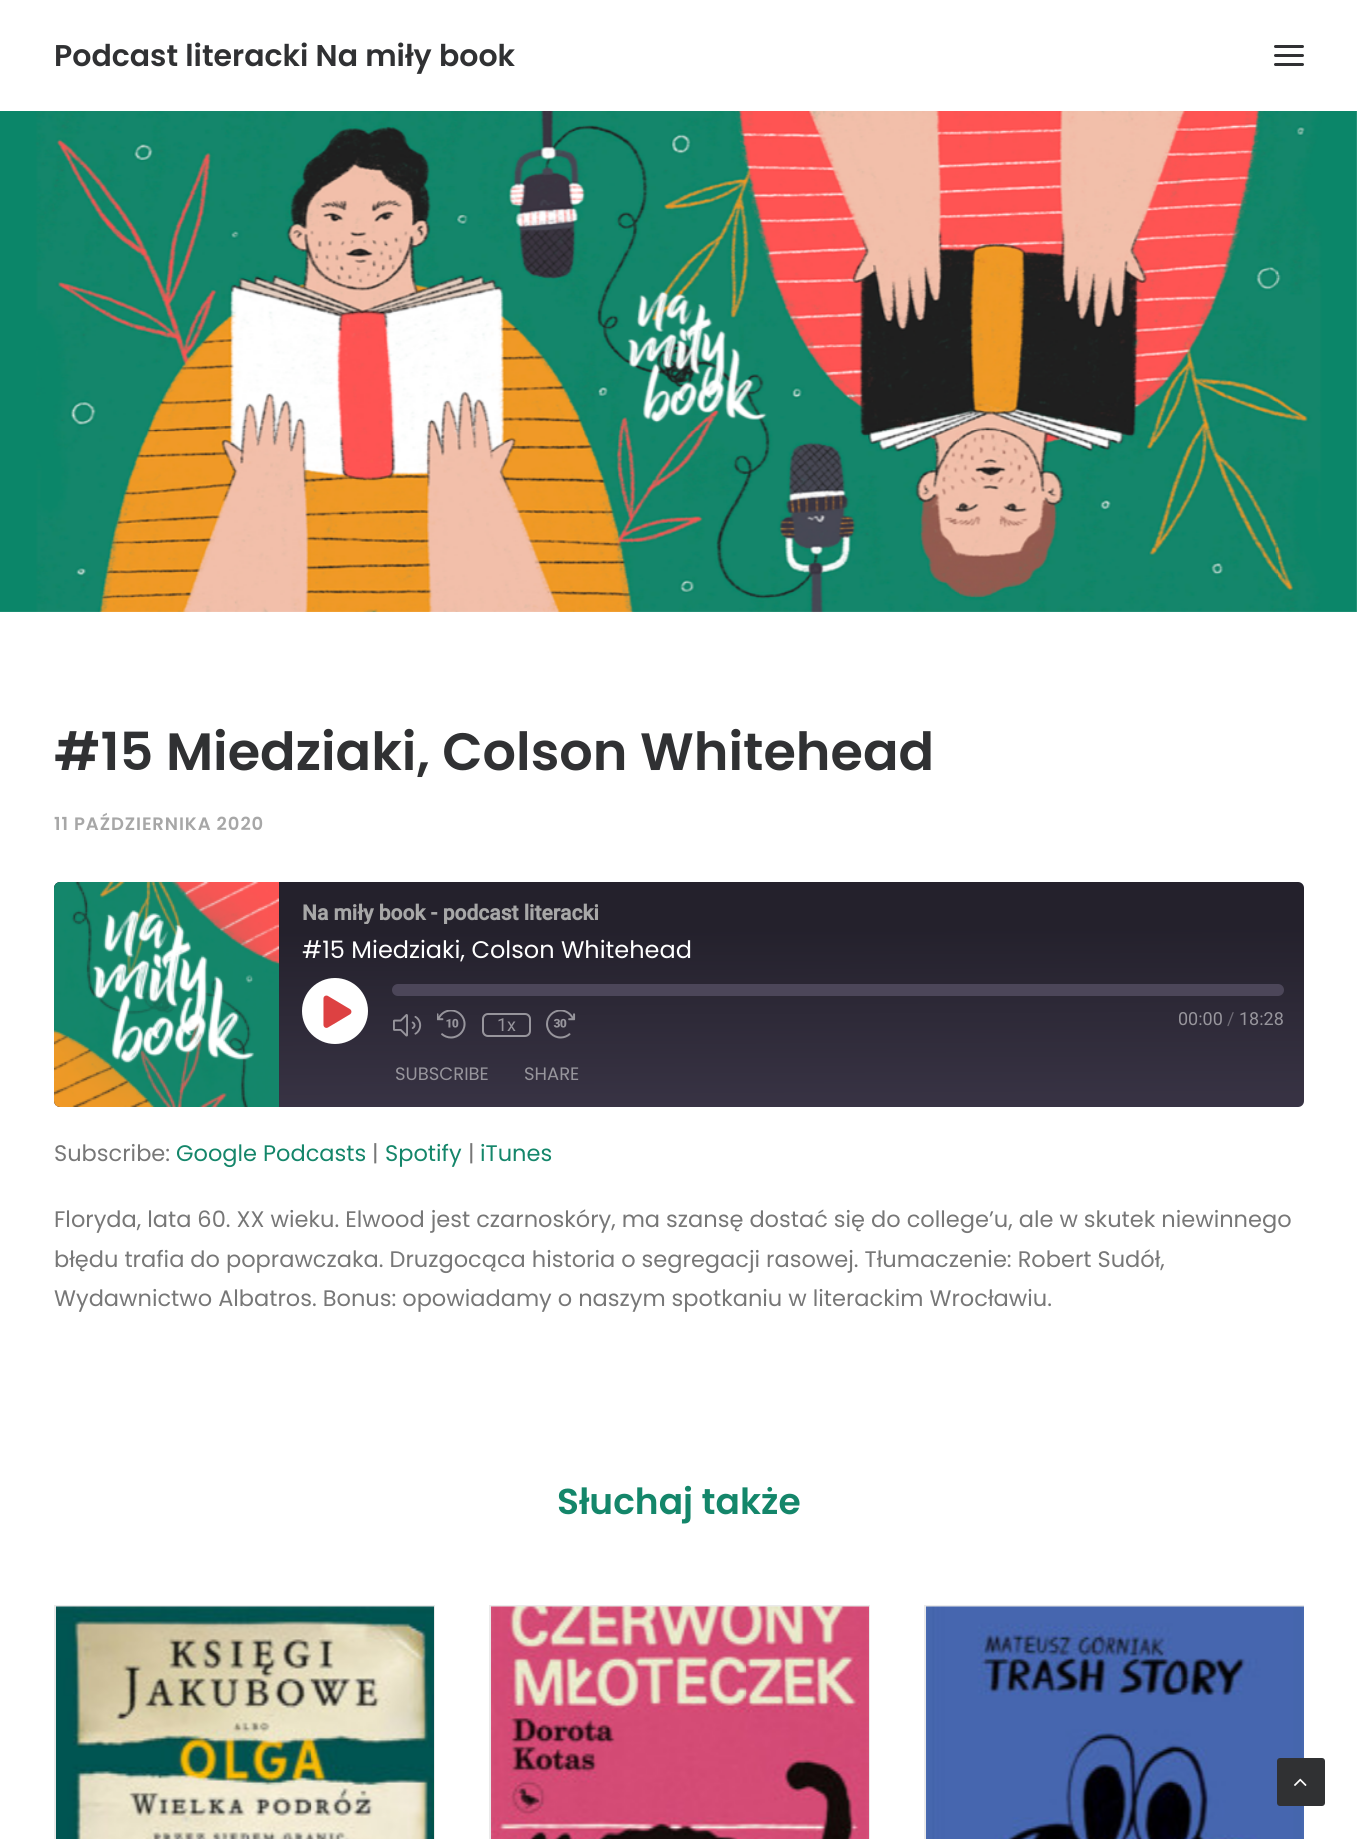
#include <cairo.h>
#include <math.h>
#include <stddef.h>


static void set_color(cairo_t *cr, unsigned color) {
    cairo_set_source_rgb(cr, (color >> 16) / 255.0, (color >> 8 & 255) / 255.0, (color & 255) / 255.0);
}

static void draw_text(cairo_t *cr, double x, double y, const char *s, const char *family, double size, int italic, int bold, unsigned color) {
    cairo_select_font_face(cr, family, italic ? CAIRO_FONT_SLANT_ITALIC : CAIRO_FONT_SLANT_NORMAL,
        bold ? CAIRO_FONT_WEIGHT_BOLD : CAIRO_FONT_WEIGHT_NORMAL);
    cairo_set_font_size(cr, size);
    set_color(cr, color);
    cairo_move_to(cr, x, y);
    cairo_show_text(cr, s);
}

static void draw_spaced(cairo_t *cr, double x, double y, const char *s, double letter, double word) {
    cairo_move_to(cr, x, y);
    while (*s) {
        char ch[5] = {0};
        int n = 0;
        do ch[n++] = *s++; while ((*s & 0xC0) == 0x80);
        cairo_show_text(cr, ch);
        cairo_rel_move_to(cr, letter + word * (*ch == ' '), 0);
    }
}

static void rounded_rect(cairo_t *cr, double x, double y, double w, double h, double r) {
    cairo_new_sub_path(cr);
    cairo_arc(cr, x + w - r, y + h - r, r, 0, M_PI / 2);
    cairo_arc(cr, x + r, y + h - r, r, M_PI / 2, M_PI);
    cairo_arc(cr, x + r, y + r, r, M_PI, 1.5 * M_PI);
    cairo_arc(cr, x + w - r, y + r, r, 1.5 * M_PI, 2 * M_PI);
    cairo_close_path(cr);
}

static void draw_image(cairo_t *cr, const char *path, double x, double y, double w, double h) {
    cairo_surface_t *image = cairo_image_surface_create_from_png(path);
    cairo_save(cr);
    cairo_set_source_surface(cr, image, x, y);
    cairo_rectangle(cr, x, y, w, h);
    cairo_fill(cr);
    cairo_restore(cr);
    cairo_surface_destroy(image);
}

int main(void) {
    cairo_surface_t *surface = cairo_image_surface_create(CAIRO_FORMAT_RGB24, 1357, 1839);
    cairo_t *cr = cairo_create(surface);
    cairo_font_options_t *options = cairo_font_options_create();
    cairo_font_options_set_hint_metrics(options, CAIRO_HINT_METRICS_OFF);
    cairo_font_options_set_hint_style(options, CAIRO_HINT_STYLE_NONE);
    cairo_set_font_options(cr, options);
    cairo_set_miter_limit(cr, 4);
    cairo_pattern_t *gradient;
    set_color(cr, 0xFFFFFF);
    cairo_paint(cr);
    draw_text(cr, 54, 66, "Podcast literacki Na miły book", "Poppins SemiBold", 30, 0, 0, 0x303133);
    rounded_rect(cr, 1274, 54, 30, 3, 1.5);
    cairo_fill(cr);
    rounded_rect(cr, 1274, 45, 30, 3, 1.5);
    cairo_fill(cr);
    rounded_rect(cr, 1274, 63, 30, 3, 1.5);
    cairo_fill(cr);
    draw_image(cr, "assets/img1.png", 0, 111, 1357, 501);
    draw_text(cr, 54, 770, "#15 Miedziaki, Colson Whitehead", "Poppins SemiBold", 52.5, 0, 0, 0x303133);
    cairo_set_font_size(cr, 18);
    set_color(cr, 0xA7A7A7);
    draw_spaced(cr, 54, 830, "11 PAŹDZIERNIKA 2020", 0.9, 0);
    gradient = cairo_pattern_create_linear(679, 1110, 678, 879);
    cairo_pattern_add_color_stop_rgba(gradient, 0.01, 0.22, 0.2, 0.267, 1);
    cairo_pattern_add_color_stop_rgba(gradient, 0.78, 0.141, 0.129, 0.173, 1);
    cairo_set_source(cr, gradient);
    cairo_pattern_destroy(gradient);
    rounded_rect(cr, 54, 882, 1250, 225, 6);
    cairo_fill(cr);
    draw_image(cr, "assets/img2.png", 54, 882, 225, 225);
    cairo_save(cr);
    cairo_rectangle(cr, 302, 902, 982, 22);
    cairo_clip(cr);
    draw_text(cr, 302, 920, "Na miły book - podcast literacki", "Roboto", 21, 0, 1, 0xA7A7A7);
    cairo_restore(cr);
    draw_text(cr, 302, 958, "#15 Miedziaki, Colson Whitehead", "Poppins", 24, 0, 0, 0xFFFFFF);
    cairo_new_path(cr);
    cairo_arc(cr, 335, 1011, 33, 0, 2 * M_PI);
    cairo_fill(cr);
    draw_image(cr, "assets/img3.png", 323, 995, 29, 33);
    set_color(cr, 0x4C4659);
    rounded_rect(cr, 392, 984, 892, 12, 6);
    cairo_fill(cr);
    draw_image(cr, "assets/img4.png", 393, 1014, 29, 23);
    draw_image(cr, "assets/img5.png", 437, 1010, 29, 29);
    rounded_rect(cr, 483, 1014, 47, 22, 5);
    cairo_set_source_rgba(cr, 1, 1, 1, 0.5);
    cairo_stroke(cr);
    draw_text(cr, 497, 1031, "1x", "Roboto", 18, 0, 0, 0x97959C);
    draw_image(cr, "assets/img6.png", 546, 1010, 30, 29);
    draw_text(cr, 1178, 1025, "00:00", "Roboto", 18, 0, 0, 0x97959C);
    draw_text(cr, 1227, 1025, "/", "Roboto", 18, 0, 0, 0x6D6A74);
    draw_text(cr, 1239, 1025, "18:28", "Roboto", 18, 0, 0, 0x97959C);
    draw_text(cr, 395, 1080, "SUBSCRIBE", "Poppins", 18, 0, 0, 0x97959C);
    draw_text(cr, 524, 1080, "SHARE", "Poppins", 18, 0, 0, 0x97959C);
    draw_text(cr, 54, 1161, "Subscribe:", "Poppins", 22.5, 0, 0, 0x777777);
    draw_text(cr, 176, 1161, "Google Podcasts", "Poppins", 22.5, 0, 0, 0x14866A);
    draw_text(cr, 372, 1161, "|", "Poppins", 22.5, 0, 0, 0x777777);
    draw_text(cr, 385, 1161, "Spotify", "Poppins", 22.5, 0, 0, 0x14866A);
    draw_text(cr, 468, 1161, "|", "Poppins", 22.5, 0, 0, 0x777777);
    draw_text(cr, 480, 1161, "iTunes", "Poppins", 22.5, 0, 0, 0x14866A);
    draw_text(cr, 54, 1227, "Floryda, lata 60. XX wieku. Elwood jest czarnoskóry, ma szansę dostać się do college’u, ale w skutek niewinnego", "Poppins", 22.5, 0, 0, 0x777777);
    draw_text(cr, 54, 1267, "błędu trafia do poprawczaka. Druzgocąca historia o segregacji rasowej. Tłumaczenie: Robert Sudół,", "Poppins", 22.5, 0, 0, 0x777777);
    draw_text(cr, 54, 1306, "Wydawnictwo Albatros. Bonus: opowiadamy o naszym spotkaniu w literackim Wrocławiu.", "Poppins", 22.5, 0, 0, 0x777777);
    draw_text(cr, 557, 1514, "Słuchaj także", "Poppins SemiBold", 36, 0, 0, 0x14866A);
    cairo_rectangle(cr, 55, 1606, 379, 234);
    set_color(cr, 0xEAEAEA);
    cairo_stroke(cr);
    draw_image(cr, "assets/img7.png", 56, 1606, 378, 233);
    cairo_rectangle(cr, 490, 1606, 379, 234);
    cairo_stroke(cr);
    draw_image(cr, "assets/img8.png", 491, 1606, 378, 233);
    cairo_save(cr);
    cairo_rectangle(cr, 54, 1605, 1250, 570);
    cairo_clip(cr);
    cairo_rectangle(cr, 925, 1606, 379, 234);
    cairo_stroke(cr);
    cairo_restore(cr);
    draw_image(cr, "assets/img9.png", 926, 1606, 378, 233);
    set_color(cr, 0x303133);
    rounded_rect(cr, 1278, 1759, 46, 46, 2);
    cairo_fill_preserve(cr);
    cairo_stroke(cr);
    draw_image(cr, "assets/img10.png", 1294, 1778, 13, 8);
    cairo_surface_write_to_png(surface, "output.png");
    cairo_font_options_destroy(options);
    cairo_destroy(cr);
    cairo_surface_destroy(surface);
    return 0;
}
